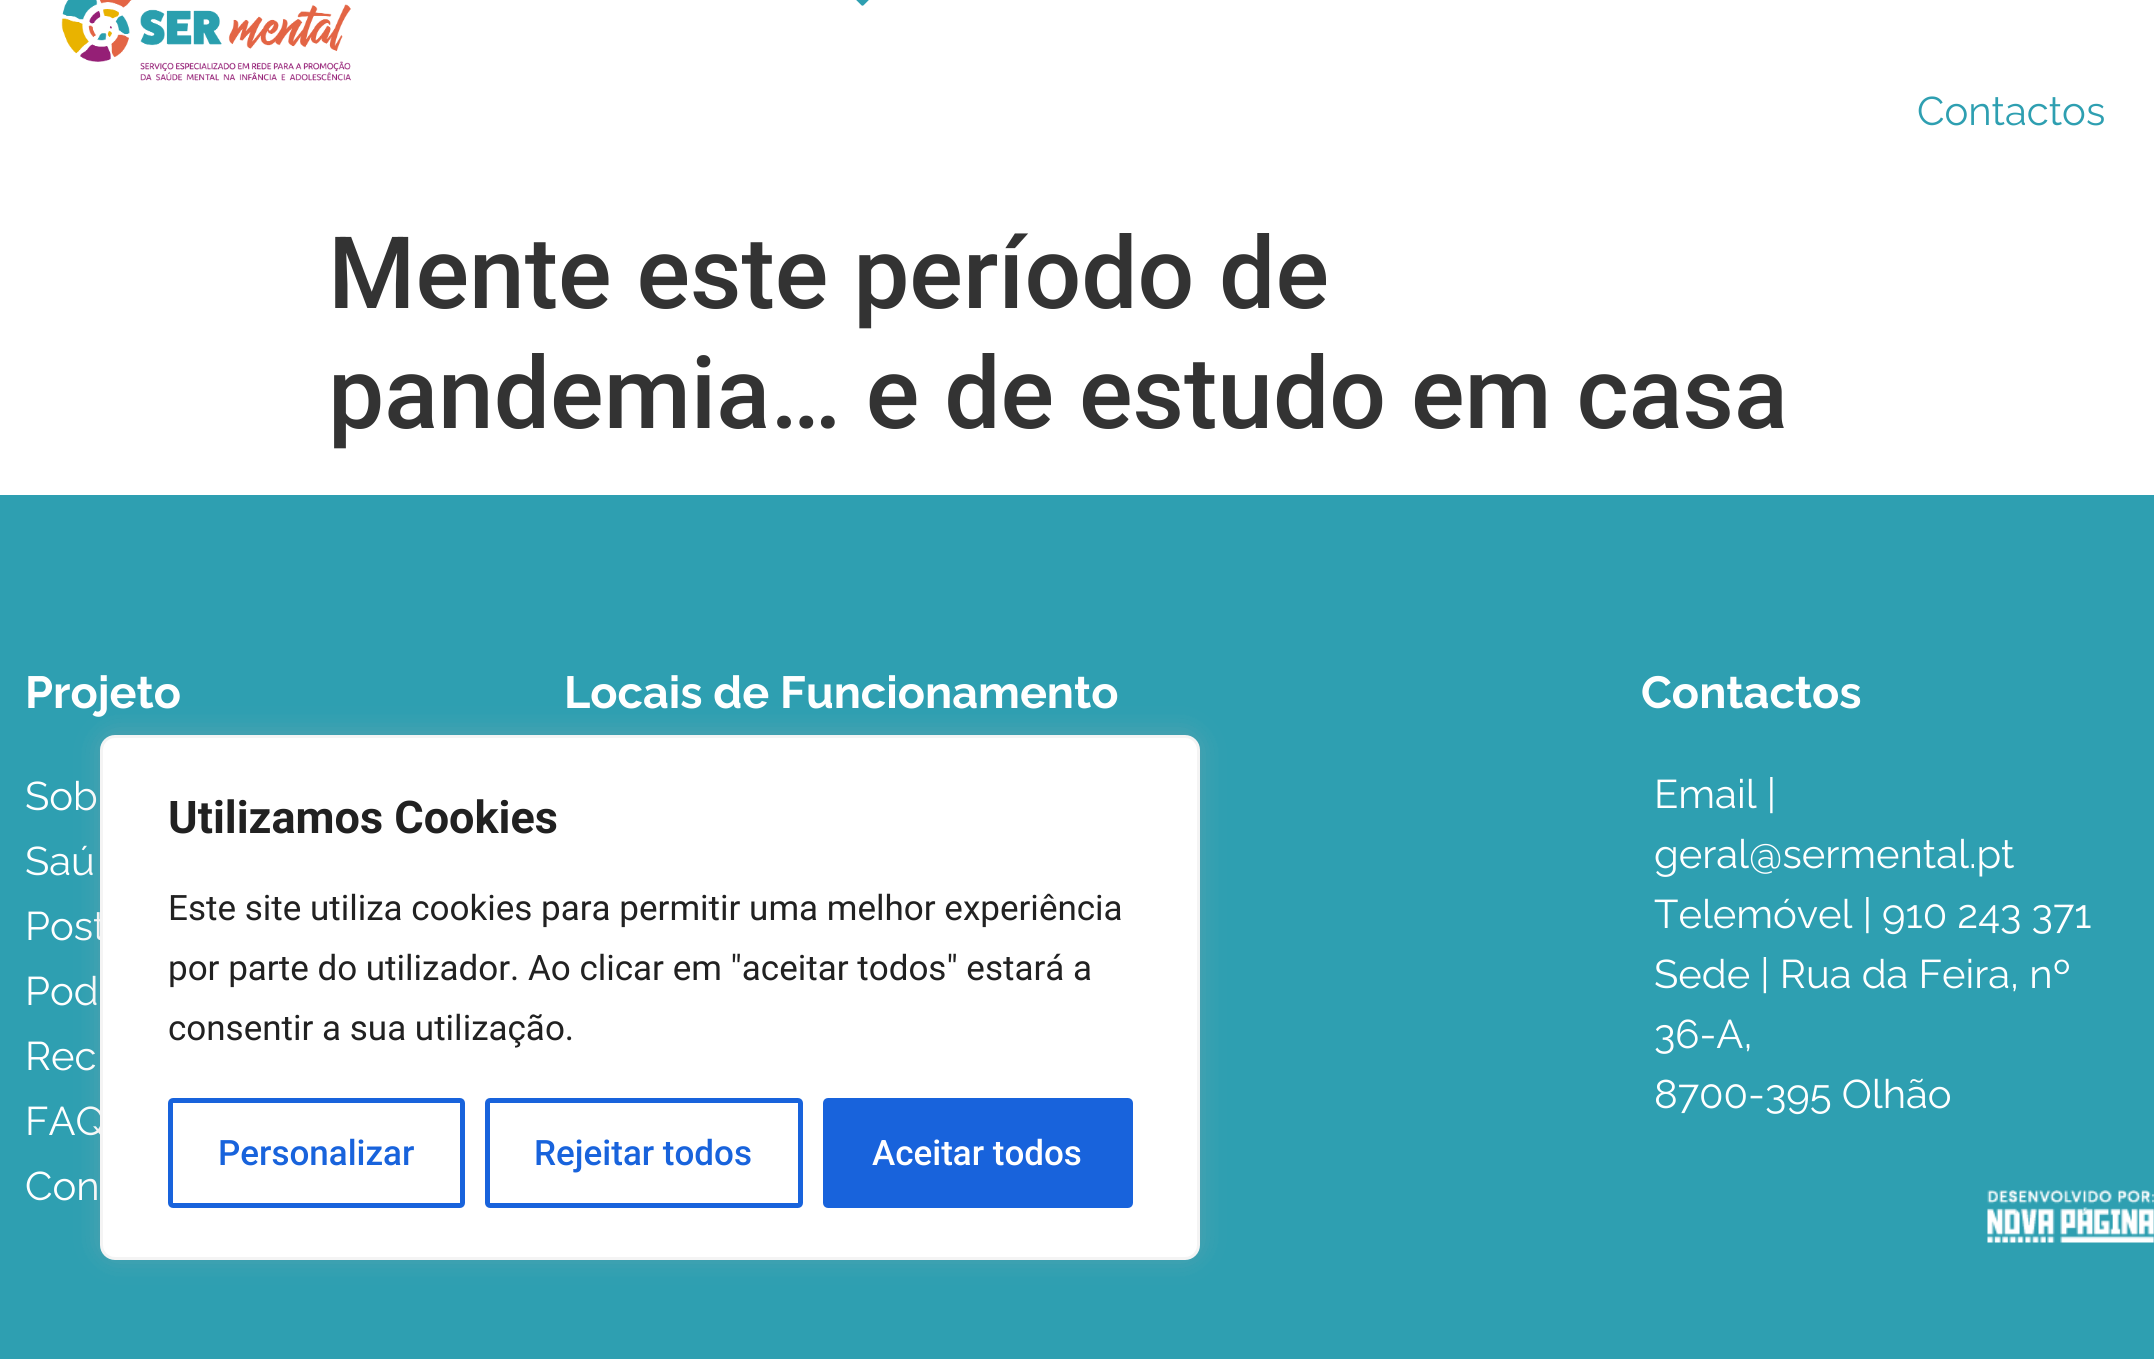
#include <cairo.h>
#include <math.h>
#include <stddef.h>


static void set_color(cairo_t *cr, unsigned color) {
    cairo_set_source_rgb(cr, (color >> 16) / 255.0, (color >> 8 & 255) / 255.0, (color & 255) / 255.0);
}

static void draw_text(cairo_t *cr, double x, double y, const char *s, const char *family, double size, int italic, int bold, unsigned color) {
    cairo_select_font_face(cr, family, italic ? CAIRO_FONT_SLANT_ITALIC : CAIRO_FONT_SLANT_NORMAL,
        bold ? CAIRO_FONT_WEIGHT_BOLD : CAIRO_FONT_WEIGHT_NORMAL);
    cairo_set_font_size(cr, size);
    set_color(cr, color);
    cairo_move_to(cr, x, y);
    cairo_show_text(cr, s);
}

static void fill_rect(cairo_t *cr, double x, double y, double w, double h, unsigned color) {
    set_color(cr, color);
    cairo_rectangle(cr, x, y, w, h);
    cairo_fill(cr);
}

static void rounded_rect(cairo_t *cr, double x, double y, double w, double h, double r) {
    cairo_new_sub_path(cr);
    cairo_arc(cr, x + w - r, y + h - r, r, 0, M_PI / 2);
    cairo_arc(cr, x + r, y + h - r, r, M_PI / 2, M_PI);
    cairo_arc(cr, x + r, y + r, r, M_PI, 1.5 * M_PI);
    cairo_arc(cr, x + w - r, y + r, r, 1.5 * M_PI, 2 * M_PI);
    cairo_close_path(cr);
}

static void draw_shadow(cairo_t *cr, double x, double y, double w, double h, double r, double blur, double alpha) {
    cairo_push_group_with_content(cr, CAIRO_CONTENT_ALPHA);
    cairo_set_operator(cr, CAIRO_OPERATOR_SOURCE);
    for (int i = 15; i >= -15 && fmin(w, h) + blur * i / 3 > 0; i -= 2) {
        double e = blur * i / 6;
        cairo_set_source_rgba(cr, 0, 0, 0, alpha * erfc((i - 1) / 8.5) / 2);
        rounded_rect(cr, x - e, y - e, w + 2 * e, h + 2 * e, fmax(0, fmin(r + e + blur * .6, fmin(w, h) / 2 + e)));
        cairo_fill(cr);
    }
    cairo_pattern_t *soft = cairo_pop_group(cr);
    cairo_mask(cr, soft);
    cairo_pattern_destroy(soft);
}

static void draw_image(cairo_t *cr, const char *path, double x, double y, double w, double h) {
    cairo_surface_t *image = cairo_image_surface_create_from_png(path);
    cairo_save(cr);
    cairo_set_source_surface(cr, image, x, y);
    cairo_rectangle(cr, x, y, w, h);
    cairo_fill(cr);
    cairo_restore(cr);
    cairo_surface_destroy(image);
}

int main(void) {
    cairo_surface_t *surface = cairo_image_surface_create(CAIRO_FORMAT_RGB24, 2154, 1359);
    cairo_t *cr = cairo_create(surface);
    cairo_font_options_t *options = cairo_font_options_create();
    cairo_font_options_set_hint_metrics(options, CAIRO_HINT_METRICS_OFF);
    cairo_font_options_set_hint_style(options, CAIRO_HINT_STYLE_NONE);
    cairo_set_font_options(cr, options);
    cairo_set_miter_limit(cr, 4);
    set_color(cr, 0xFFFFFF);
    cairo_paint(cr);
    draw_image(cr, "assets/img1.png", 61, 0, 290, 81);
    draw_image(cr, "assets/img2.png", 856, 0, 13, 6);
    draw_text(cr, 1917, 125, "Contactos", "Raleway", 40, 0, 0, 0x2E9FB1);
    draw_text(cr, 328, 308, "Mente este período de", "Roboto Medium", 100, 0, 0, 0x333333);
    draw_text(cr, 328, 428, "pandemia… e de estudo em casa", "Roboto Medium", 100, 0, 0, 0x333333);
    fill_rect(cr, 0, 495, 2154, 864, 0x2E9FB1);
    draw_text(cr, 25, 708, "Projeto", "Raleway", 45, 0, 1, 0xFFFFFF);
    draw_text(cr, 25, 810, "Sob", "Raleway", 40, 0, 0, 0xFFFFFF);
    draw_text(cr, 25, 875, "Saú", "Raleway", 40, 0, 0, 0xFFFFFF);
    draw_text(cr, 25, 940, "Post", "Raleway", 40, 0, 0, 0xFFFFFF);
    draw_text(cr, 25, 1005, "Pod", "Raleway", 40, 0, 0, 0xFFFFFF);
    draw_text(cr, 25, 1070, "Rec", "Raleway", 40, 0, 0, 0xFFFFFF);
    draw_text(cr, 25, 1135, "FAQ", "Raleway", 40, 0, 0, 0xFFFFFF);
    draw_text(cr, 25, 1200, "Con", "Raleway", 40, 0, 0, 0xFFFFFF);
    draw_text(cr, 564, 708, "Locais de Funcionamento", "Raleway", 45, 0, 1, 0xFFFFFF);
    draw_text(cr, 1641, 708, "Contactos", "Raleway", 45, 0, 1, 0xFFFFFF);
    draw_text(cr, 1654, 808, "Email |", "Raleway", 40, 0, 0, 0xFFFFFF);
    draw_text(cr, 1654, 868, "geral@sermental.pt", "Raleway", 40, 0, 0, 0xFFFFFF);
    draw_text(cr, 1654, 928, "Telemóvel | 910 243 371", "Raleway", 40, 0, 0, 0xFFFFFF);
    draw_text(cr, 1654, 988, "Sede | Rua da Feira, nº", "Raleway", 40, 0, 0, 0xFFFFFF);
    draw_text(cr, 1654, 1048, "36-A,", "Raleway", 40, 0, 0, 0xFFFFFF);
    draw_text(cr, 1654, 1108, "8700-395 Olhão", "Raleway", 40, 0, 0, 0xFFFFFF);
    draw_image(cr, "assets/img3.png", 1987, 1190, 167, 53);
    set_color(cr, 0xACABAB);
    draw_shadow(cr, 100, 733, 1100, 525, 15, 12.5, 0.3);
    set_color(cr, 0xFFFFFF);
    rounded_rect(cr, 101.5, 736.5, 1097, 522, 13.5);
    cairo_fill_preserve(cr);
    set_color(cr, 0xF4F4F4);
    cairo_set_line_width(cr, 3);
    cairo_stroke(cr);
    draw_text(cr, 168, 833, "Utilizamos Cookies", "Roboto", 45, 0, 1, 0x212121);
    draw_text(cr, 168, 920, "Este site utiliza cookies para permitir uma melhor experiência", "Roboto", 35, 0, 0, 0x212121);
    draw_text(cr, 168, 980, "por parte do utilizador. Ao clicar em \"aceitar todos\" estará a", "Roboto", 35, 0, 0, 0x212121);
    draw_text(cr, 168, 1040, "consentir a sua utilização.", "Roboto", 35, 0, 0, 0x212121);
    rounded_rect(cr, 170.5, 1100.5, 292, 105, 2.5);
    set_color(cr, 0x1863DC);
    cairo_set_line_width(cr, 5);
    cairo_stroke(cr);
    draw_text(cr, 218, 1165, "Personalizar", "Roboto Medium", 35, 0, 0, 0x1863DC);
    rounded_rect(cr, 487.5, 1100.5, 313, 105, 2.5);
    cairo_stroke(cr);
    draw_text(cr, 534, 1165, "Rejeitar todos", "Roboto Medium", 35, 0, 0, 0x1863DC);
    rounded_rect(cr, 825.5, 1100.5, 305, 105, 2.5);
    cairo_fill_preserve(cr);
    cairo_stroke(cr);
    draw_text(cr, 872, 1165, "Aceitar todos", "Roboto Medium", 35, 0, 0, 0xFFFFFF);
    cairo_surface_write_to_png(surface, "output.png");
    cairo_font_options_destroy(options);
    cairo_destroy(cr);
    cairo_surface_destroy(surface);
    return 0;
}
